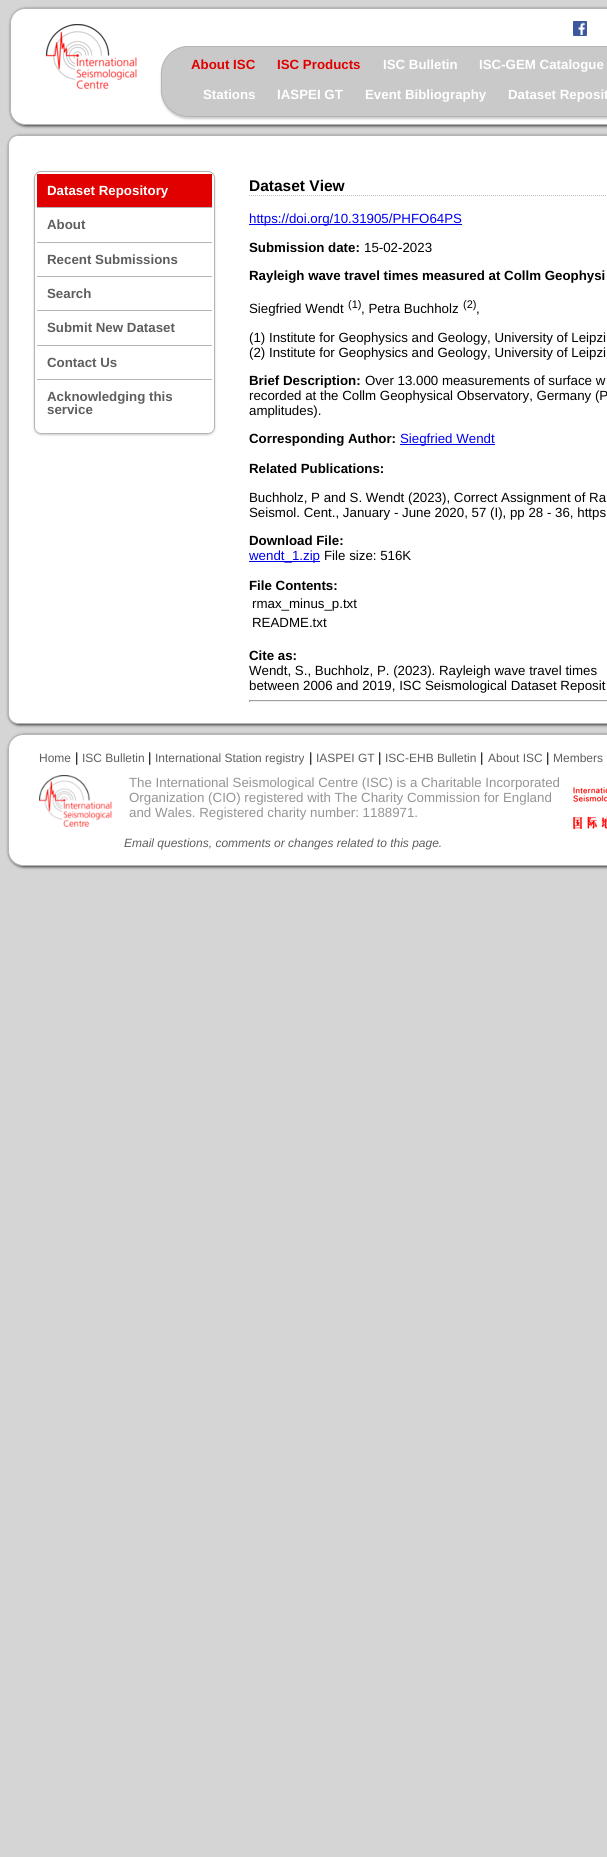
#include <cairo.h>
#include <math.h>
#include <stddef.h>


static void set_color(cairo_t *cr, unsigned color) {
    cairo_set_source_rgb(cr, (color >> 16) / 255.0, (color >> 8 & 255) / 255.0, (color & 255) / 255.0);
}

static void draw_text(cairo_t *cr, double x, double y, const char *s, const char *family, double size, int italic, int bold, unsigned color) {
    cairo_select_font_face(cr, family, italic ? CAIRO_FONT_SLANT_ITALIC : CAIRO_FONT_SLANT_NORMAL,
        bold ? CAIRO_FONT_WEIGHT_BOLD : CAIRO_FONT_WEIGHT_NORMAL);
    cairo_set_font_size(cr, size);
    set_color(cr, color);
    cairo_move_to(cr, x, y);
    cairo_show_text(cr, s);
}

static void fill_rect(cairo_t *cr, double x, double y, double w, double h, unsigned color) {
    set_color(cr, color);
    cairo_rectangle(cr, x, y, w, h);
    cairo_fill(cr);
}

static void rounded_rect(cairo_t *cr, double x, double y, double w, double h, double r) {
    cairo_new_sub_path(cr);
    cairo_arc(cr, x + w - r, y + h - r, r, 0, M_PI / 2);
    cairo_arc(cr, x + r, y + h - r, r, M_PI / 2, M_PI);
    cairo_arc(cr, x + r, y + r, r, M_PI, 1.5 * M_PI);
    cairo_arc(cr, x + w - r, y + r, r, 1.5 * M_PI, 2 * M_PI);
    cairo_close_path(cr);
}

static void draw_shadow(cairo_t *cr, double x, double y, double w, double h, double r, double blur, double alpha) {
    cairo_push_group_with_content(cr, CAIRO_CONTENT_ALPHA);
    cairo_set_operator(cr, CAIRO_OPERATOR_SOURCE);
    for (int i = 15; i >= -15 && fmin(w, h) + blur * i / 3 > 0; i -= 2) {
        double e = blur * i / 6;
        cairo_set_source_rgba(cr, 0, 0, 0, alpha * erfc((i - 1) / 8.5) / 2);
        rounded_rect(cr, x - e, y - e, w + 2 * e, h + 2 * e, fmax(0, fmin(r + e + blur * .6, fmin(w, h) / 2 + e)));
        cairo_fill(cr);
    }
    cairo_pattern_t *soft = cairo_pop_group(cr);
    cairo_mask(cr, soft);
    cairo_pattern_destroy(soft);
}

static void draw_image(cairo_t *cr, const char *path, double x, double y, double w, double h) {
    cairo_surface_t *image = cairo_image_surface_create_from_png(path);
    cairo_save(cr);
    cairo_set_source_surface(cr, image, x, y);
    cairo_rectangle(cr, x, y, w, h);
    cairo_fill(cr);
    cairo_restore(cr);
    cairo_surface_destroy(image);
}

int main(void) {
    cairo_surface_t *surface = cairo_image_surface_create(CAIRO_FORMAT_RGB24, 607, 1857);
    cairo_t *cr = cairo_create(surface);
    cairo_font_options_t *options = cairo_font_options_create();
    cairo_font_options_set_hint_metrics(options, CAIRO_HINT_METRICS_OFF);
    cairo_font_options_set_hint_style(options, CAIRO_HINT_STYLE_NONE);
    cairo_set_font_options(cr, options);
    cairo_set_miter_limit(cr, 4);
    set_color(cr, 0xD5D5D5);
    cairo_paint(cr);
    set_color(cr, 0x333333);
    draw_shadow(cr, 11, 9, 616, 117, 15, 1.5, 1);
    set_color(cr, 0xFFFFFF);
    rounded_rect(cr, 10.5, 8.5, 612, 116, 14.5);
    cairo_fill_preserve(cr);
    set_color(cr, 0xB4B4B4);
    cairo_set_line_width(cr, 1);
    cairo_stroke(cr);
    draw_image(cr, "assets/img1.png", 46, 24, 91, 65);
    draw_image(cr, "assets/img2.png", 573, 21, 14, 15);
    set_color(cr, 0x000000);
    draw_shadow(cr, 161, 48, 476, 71, 27, 1, 0.2);
    set_color(cr, 0xC9C9C9);
    rounded_rect(cr, 161.5, 46.5, 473, 70, 26.5);
    cairo_fill_preserve(cr);
    set_color(cr, 0xB4B4B4);
    cairo_stroke(cr);
    draw_text(cr, 191, 69, "About ISC", "Liberation Sans", 13.3, 0, 1, 0xE00000);
    draw_text(cr, 277, 69, "ISC Products", "Liberation Sans", 13.3, 0, 1, 0xE00000);
    draw_text(cr, 383, 69, "ISC Bulletin", "Liberation Sans", 13.3, 0, 1, 0xFFFFFF);
    draw_text(cr, 479, 69, "ISC-GEM Catalogue", "Liberation Sans", 13.3, 0, 1, 0xFFFFFF);
    draw_text(cr, 203, 99, "Stations", "Liberation Sans", 13.3, 0, 1, 0xFFFFFF);
    draw_text(cr, 277, 99, "IASPEI GT", "Liberation Sans", 13.3, 0, 1, 0xFFFFFF);
    draw_text(cr, 365, 99, "Event Bibliography", "Liberation Sans", 13.3, 0, 1, 0xFFFFFF);
    draw_text(cr, 508, 99, "Dataset Reposit", "Liberation Sans", 13.3, 0, 1, 0xFFFFFF);
    set_color(cr, 0x333333);
    draw_shadow(cr, 9, 136, 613, 589, 10, 1.5, 1);
    set_color(cr, 0xFFFFFF);
    rounded_rect(cr, 8.5, 135.5, 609, 588, 9.5);
    cairo_fill_preserve(cr);
    set_color(cr, 0xB4B4B4);
    cairo_stroke(cr);
    cairo_save(cr);
    cairo_set_fill_rule(cr, CAIRO_FILL_RULE_EVEN_ODD);
    cairo_new_path(cr);
    cairo_move_to(cr, 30, 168);
    cairo_line_to(cr, 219, 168);
    cairo_line_to(cr, 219, 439);
    cairo_line_to(cr, 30, 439);
    cairo_close_path(cr);
    cairo_move_to(cr, 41, 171);
    cairo_line_to(cr, 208, 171);
    cairo_curve_to(cr, 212, 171, 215, 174, 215, 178);
    cairo_line_to(cr, 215, 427);
    cairo_curve_to(cr, 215, 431, 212, 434, 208, 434);
    cairo_line_to(cr, 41, 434);
    cairo_curve_to(cr, 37, 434, 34, 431, 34, 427);
    cairo_line_to(cr, 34, 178);
    cairo_curve_to(cr, 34, 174, 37, 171, 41, 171);
    cairo_close_path(cr);
    cairo_clip(cr);
    set_color(cr, 0x000000);
    draw_shadow(cr, 34, 172, 181, 263, 7, 1, 0.2);
    cairo_restore(cr);
    rounded_rect(cr, 34.5, 171.5, 180, 262, 6.5);
    cairo_stroke(cr);
    fill_rect(cr, 37, 174, 175, 33, 0xE00000);
    draw_text(cr, 47, 195, "Dataset Repository", "Liberation Sans", 13.3, 0, 1, 0xFFFFFF);
    fill_rect(cr, 37, 207, 175, 1, 0xB4B4B4);
    draw_text(cr, 47, 229, "About", "Liberation Sans", 13.3, 0, 1, 0x5E5E5E);
    fill_rect(cr, 37, 242, 175, 1, 0xB4B4B4);
    draw_text(cr, 47, 264, "Recent Submissions", "Liberation Sans", 13.3, 0, 1, 0x5E5E5E);
    fill_rect(cr, 37, 276, 175, 1, 0xB4B4B4);
    draw_text(cr, 47, 298, "Search", "Liberation Sans", 13.3, 0, 1, 0x5E5E5E);
    fill_rect(cr, 37, 310, 175, 1, 0xB4B4B4);
    draw_text(cr, 47, 332, "Submit New Dataset", "Liberation Sans", 13.3, 0, 1, 0x5E5E5E);
    fill_rect(cr, 37, 345, 175, 1, 0xB4B4B4);
    draw_text(cr, 47, 367, "Contact Us", "Liberation Sans", 13.3, 0, 1, 0x5E5E5E);
    fill_rect(cr, 37, 379, 175, 1, 0xB4B4B4);
    draw_text(cr, 47, 401, "Acknowledging this", "Liberation Sans", 13.3, 0, 1, 0x5E5E5E);
    draw_text(cr, 47, 414, "service", "Liberation Sans", 13.3, 0, 1, 0x5E5E5E);
    cairo_new_path(cr);
    cairo_move_to(cr, 249, 195.5);
    cairo_line_to(cr, 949, 195.5);
    set_color(cr, 0xBABABA);
    cairo_set_dash(cr, (double[]){1, 1}, 2, 0);
    cairo_stroke(cr);
    draw_text(cr, 249, 191, "Dataset View", "Liberation Sans", 15.5, 0, 1, 0x000000);
    fill_rect(cr, 249, 224, 213, 1, 0x0000EE);
    draw_text(cr, 249, 223, "https://doi.org/10.31905/PHFO64PS", "Liberation Sans", 13.3, 0, 0, 0x0000EE);
    draw_text(cr, 249, 252, "Submission date:", "Liberation Sans", 13.3, 0, 1, 0x000000);
    draw_text(cr, 364, 252, "15-02-2023", "Liberation Sans", 13.3, 0, 0, 0x000000);
    draw_text(cr, 249, 280, "Rayleigh wave travel times measured at Collm Geophysi", "Liberation Sans", 13.3, 0, 1, 0x000000);
    draw_text(cr, 249, 313, "Siegfried Wendt", "Liberation Sans", 13.3, 0, 0, 0x000000);
    draw_text(cr, 348, 308, "(1)", "Liberation Sans", 11, 0, 0, 0x000000);
    draw_text(cr, 361, 313, ", Petra Buchholz", "Liberation Sans", 13.3, 0, 0, 0x000000);
    draw_text(cr, 463, 308, "(2)", "Liberation Sans", 11, 0, 0, 0x000000);
    draw_text(cr, 476, 313, ",", "Liberation Sans", 13.3, 0, 0, 0x000000);
    draw_text(cr, 249, 342, "(1) Institute for Geophysics and Geology, University of Leipzi", "Liberation Sans", 13.3, 0, 0, 0x000000);
    draw_text(cr, 249, 357, "(2) Institute for Geophysics and Geology, University of Leipzi", "Liberation Sans", 13.3, 0, 0, 0x000000);
    draw_text(cr, 249, 385, "Brief Description:", "Liberation Sans", 13.3, 0, 1, 0x000000);
    draw_text(cr, 365, 385, "Over 13.000 measurements of surface w", "Liberation Sans", 13.3, 0, 0, 0x000000);
    draw_text(cr, 249, 400, "recorded at the Collm Geophysical Observatory, Germany (P", "Liberation Sans", 13.3, 0, 0, 0x000000);
    draw_text(cr, 249, 415, "amplitudes).", "Liberation Sans", 13.3, 0, 0, 0x000000);
    draw_text(cr, 249, 443, "Corresponding Author:", "Liberation Sans", 13.3, 0, 1, 0x000000);
    fill_rect(cr, 400, 444, 95, 1, 0x0000EE);
    draw_text(cr, 400, 443, "Siegfried Wendt", "Liberation Sans", 13.3, 0, 0, 0x0000EE);
    draw_text(cr, 249, 473, "Related Publications:", "Liberation Sans", 13.3, 0, 1, 0x000000);
    draw_text(cr, 249, 502, "Buchholz, P and S. Wendt (2023), Correct Assignment of Ra", "Liberation Sans", 13.3, 0, 0, 0x000000);
    draw_text(cr, 249, 517, "Seismol. Cent., January - June 2020, 57 (I), pp 28 - 36, https", "Liberation Sans", 13.3, 0, 0, 0x000000);
    draw_text(cr, 249, 545, "Download File:", "Liberation Sans", 13.3, 0, 1, 0x000000);
    fill_rect(cr, 249, 561, 71, 1, 0x0000EE);
    draw_text(cr, 249, 560, "wendt_1.zip", "Liberation Sans", 13.3, 0, 0, 0x0000EE);
    draw_text(cr, 324, 560, "File size: 516K", "Liberation Sans", 13.3, 0, 0, 0x000000);
    draw_text(cr, 249, 590, "File Contents:", "Liberation Sans", 13.3, 0, 1, 0x000000);
    draw_text(cr, 252, 608, "rmax_minus_p.txt", "Liberation Sans", 13.3, 0, 0, 0x000000);
    draw_text(cr, 252, 627, "README.txt", "Liberation Sans", 13.3, 0, 0, 0x000000);
    draw_text(cr, 249, 660, "Cite as:", "Liberation Sans", 13.3, 0, 1, 0x000000);
    draw_text(cr, 249, 675, "Wendt, S., Buchholz, P. (2023). Rayleigh wave travel times", "Liberation Sans", 13.3, 0, 0, 0x000000);
    draw_text(cr, 249, 690, "between 2006 and 2019, ISC Seismological Dataset Reposit", "Liberation Sans", 13.3, 0, 0, 0x000000);
    fill_rect(cr, 249, 700, 358, 1, 0x9F9F9F);
    fill_rect(cr, 249, 701, 358, 1, 0xEEEEEE);
    fill_rect(cr, 249, 700, 1, 2, 0x9F9F9F);
    set_color(cr, 0x333333);
    draw_shadow(cr, 9, 735, 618, 132, 15, 1.5, 1);
    set_color(cr, 0xFFFFFF);
    rounded_rect(cr, 8.5, 734.5, 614, 131, 14.5);
    cairo_fill_preserve(cr);
    set_color(cr, 0xB4B4B4);
    cairo_set_dash(cr, NULL, 0, 0);
    cairo_stroke(cr);
    draw_text(cr, 39, 762, "Home", "Liberation Sans", 12, 0, 0, 0x5E5E5E);
    draw_text(cr, 75, 762, "|", "Liberation Sans", 13.3, 0, 0, 0x000000);
    draw_text(cr, 82, 762, "ISC Bulletin", "Liberation Sans", 12, 0, 0, 0x5E5E5E);
    draw_text(cr, 148, 762, "|", "Liberation Sans", 13.3, 0, 0, 0x000000);
    draw_text(cr, 155, 762, "International Station registry", "Liberation Sans", 12, 0, 0, 0x5E5E5E);
    draw_text(cr, 309, 762, "|", "Liberation Sans", 13.3, 0, 0, 0x000000);
    draw_text(cr, 316, 762, "IASPEI GT", "Liberation Sans", 12, 0, 0, 0x5E5E5E);
    draw_text(cr, 378, 762, "|", "Liberation Sans", 13.3, 0, 0, 0x000000);
    draw_text(cr, 385, 762, "ISC-EHB Bulletin", "Liberation Sans", 12, 0, 0, 0x5E5E5E);
    draw_text(cr, 480, 762, "|", "Liberation Sans", 13.3, 0, 0, 0x000000);
    draw_text(cr, 488, 762, "About ISC", "Liberation Sans", 12, 0, 0, 0x5E5E5E);
    draw_text(cr, 546, 762, "|", "Liberation Sans", 13.3, 0, 0, 0x000000);
    draw_text(cr, 553, 762, "Members", "Liberation Sans", 12, 0, 0, 0x5E5E5E);
    draw_image(cr, "assets/img3.png", 39, 775, 73, 52);
    draw_text(cr, 129, 787, "The International Seismological Centre (ISC) is a Charitable Incorporated", "Liberation Sans", 13.3, 0, 0, 0x949493);
    draw_text(cr, 129, 802, "Organization (CIO) registered with The Charity Commission for England", "Liberation Sans", 13.3, 0, 0, 0x949493);
    draw_text(cr, 129, 817, "and Wales. Registered charity number: 1188971.", "Liberation Sans", 13.3, 0, 0, 0x949493);
    draw_text(cr, 124, 847, "Email questions, comments or changes related to this page.", "Liberation Sans", 12, 1, 0, 0x5E5E5E);
    draw_image(cr, "assets/img4.png", 571, 787, 36, 43);
    cairo_surface_write_to_png(surface, "output.png");
    cairo_font_options_destroy(options);
    cairo_destroy(cr);
    cairo_surface_destroy(surface);
    return 0;
}
